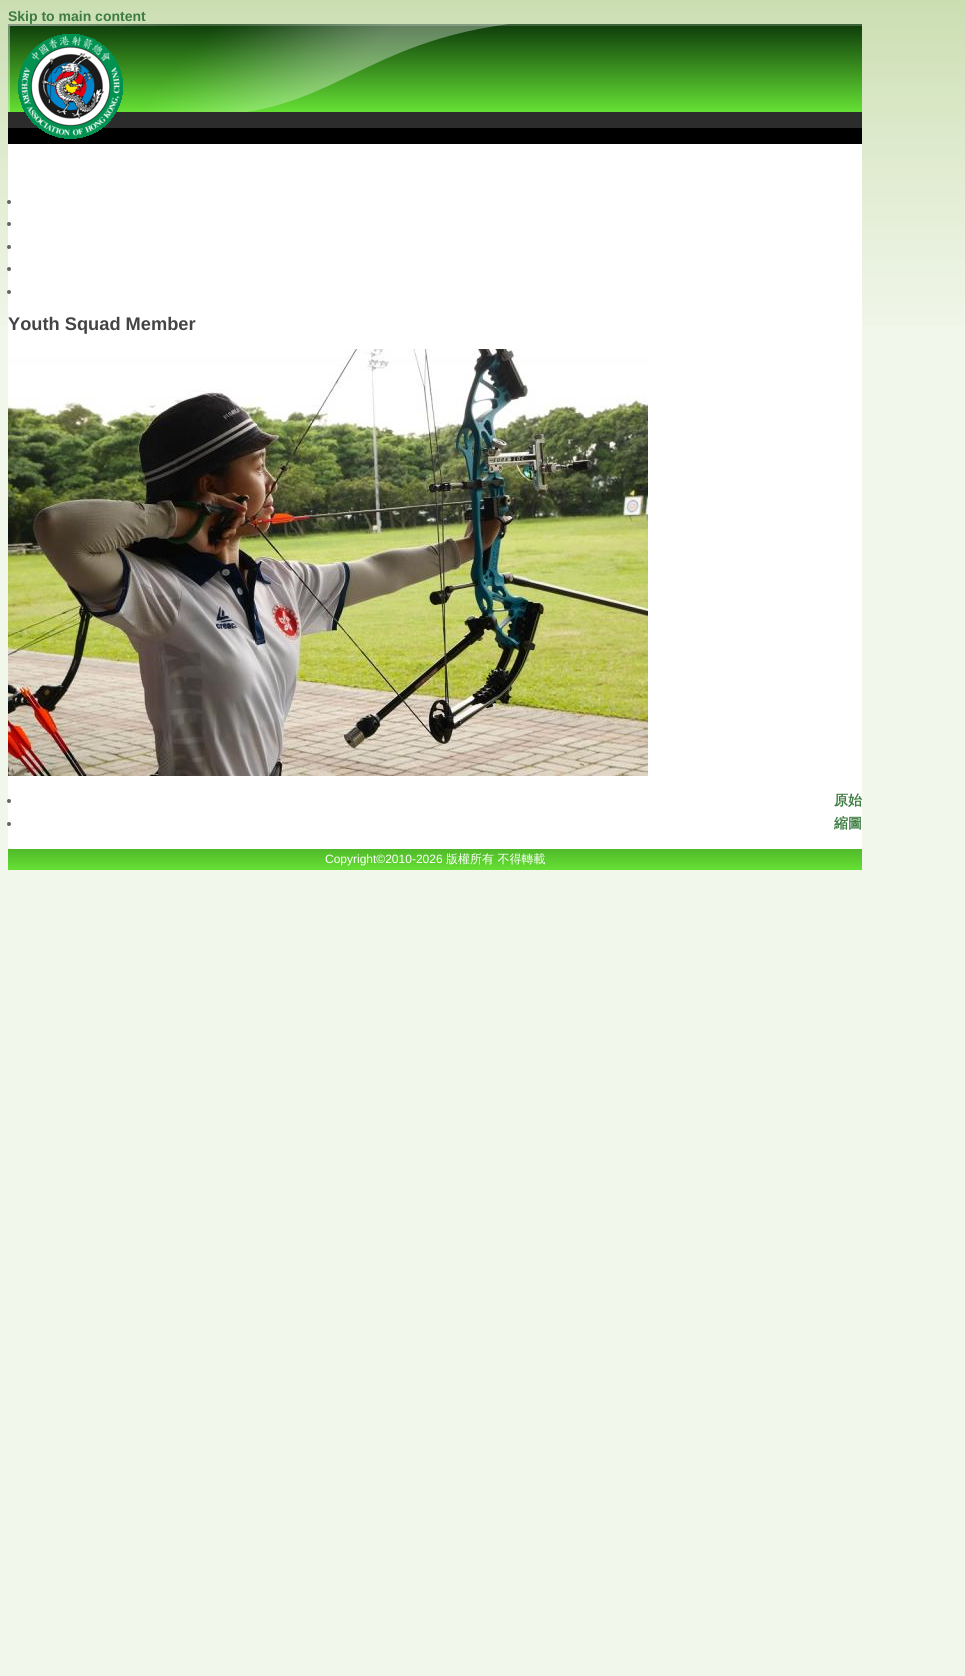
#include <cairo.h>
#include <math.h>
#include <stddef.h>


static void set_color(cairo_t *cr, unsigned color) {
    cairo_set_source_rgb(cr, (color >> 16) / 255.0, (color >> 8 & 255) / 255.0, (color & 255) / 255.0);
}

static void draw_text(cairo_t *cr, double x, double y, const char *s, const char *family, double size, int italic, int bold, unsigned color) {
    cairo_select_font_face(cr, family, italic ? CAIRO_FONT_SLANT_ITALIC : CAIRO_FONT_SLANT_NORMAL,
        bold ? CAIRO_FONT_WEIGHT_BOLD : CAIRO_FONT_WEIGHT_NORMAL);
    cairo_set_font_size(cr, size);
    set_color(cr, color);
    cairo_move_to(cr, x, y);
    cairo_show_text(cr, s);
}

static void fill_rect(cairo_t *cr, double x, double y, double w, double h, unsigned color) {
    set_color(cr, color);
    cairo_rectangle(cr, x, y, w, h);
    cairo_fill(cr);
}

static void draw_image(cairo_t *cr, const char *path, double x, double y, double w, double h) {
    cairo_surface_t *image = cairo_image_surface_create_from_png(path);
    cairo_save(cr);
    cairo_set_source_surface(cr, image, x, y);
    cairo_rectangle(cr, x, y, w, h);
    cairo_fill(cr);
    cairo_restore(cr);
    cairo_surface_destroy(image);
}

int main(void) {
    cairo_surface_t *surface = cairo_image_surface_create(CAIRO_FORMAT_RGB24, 965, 1676);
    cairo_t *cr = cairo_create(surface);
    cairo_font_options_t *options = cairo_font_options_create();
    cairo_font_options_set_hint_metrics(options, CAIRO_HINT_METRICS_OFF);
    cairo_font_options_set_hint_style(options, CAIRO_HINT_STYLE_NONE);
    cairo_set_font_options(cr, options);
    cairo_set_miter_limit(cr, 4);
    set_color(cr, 0xF2F7EC);
    cairo_paint(cr);
    draw_image(cr, "assets/img1.png", 0, 0, 965, 326);
    draw_text(cr, 8, 21, "Skip to main content", "Liberation Sans", 14, 0, 1, 0x3C7C41);
    fill_rect(cr, 8, 144, 854, 705, 0xFFFFFF);
    draw_image(cr, "assets/img2.png", 8, 24, 854, 120);
    draw_image(cr, "assets/img3.png", 8, 24, 501, 88);
    draw_image(cr, "assets/img4.png", 18, 34, 105, 105);
    set_color(cr, 0x666666);
    cairo_arc(cr, 9, 202, 2, 0, 2 * M_PI);
    cairo_fill(cr);
    cairo_arc(cr, 9, 224, 2, 0, 2 * M_PI);
    cairo_fill(cr);
    cairo_arc(cr, 9, 247, 2, 0, 2 * M_PI);
    cairo_fill(cr);
    cairo_arc(cr, 9, 269, 2, 0, 2 * M_PI);
    cairo_fill(cr);
    cairo_arc(cr, 9, 292, 2, 0, 2 * M_PI);
    cairo_fill(cr);
    draw_text(cr, 8, 330, "Youth Squad Member", "Liberation Sans", 18.25, 0, 1, 0x444444);
    draw_image(cr, "assets/img5.png", 8, 349, 640, 427);
    set_color(cr, 0x666666);
    cairo_arc(cr, 9, 801, 2, 0, 2 * M_PI);
    cairo_fill(cr);
    draw_text(cr, 834, 805, "原始", "WenQuanYi Zen Hei", 14, 0, 1, 0x3C7C41);
    set_color(cr, 0x666666);
    cairo_new_path(cr);
    cairo_arc(cr, 9, 824, 2, 0, 2 * M_PI);
    cairo_fill(cr);
    draw_text(cr, 834, 828, "縮圖", "WenQuanYi Zen Hei", 14, 0, 1, 0x3C7C41);
    draw_image(cr, "assets/img6.png", 8, 849, 854, 21);
    draw_text(cr, 325, 863, "Copyright©2010-2026", "Liberation Sans", 12, 0, 0, 0xFFFFFF);
    draw_text(cr, 446, 863, "版權所有 不得轉載", "WenQuanYi Zen Hei Medium", 12, 0, 0, 0xFFFFFF);
    cairo_surface_write_to_png(surface, "output.png");
    cairo_font_options_destroy(options);
    cairo_destroy(cr);
    cairo_surface_destroy(surface);
    return 0;
}
